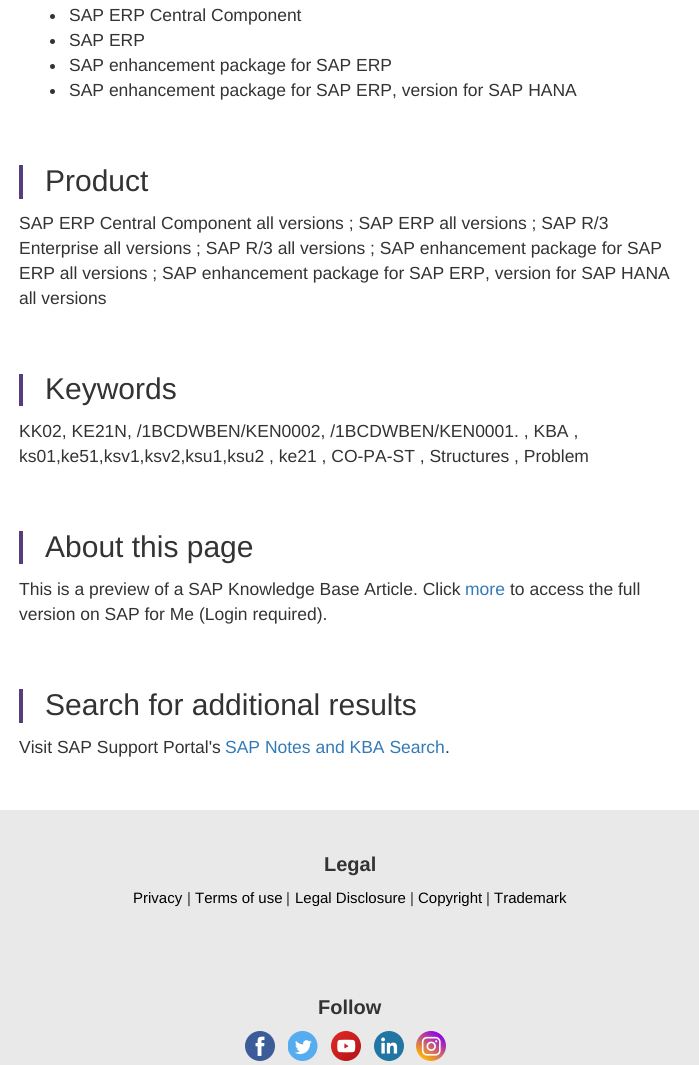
#include <cairo.h>
#include <math.h>
#include <stddef.h>


static void set_color(cairo_t *cr, unsigned color) {
    cairo_set_source_rgb(cr, (color >> 16) / 255.0, (color >> 8 & 255) / 255.0, (color & 255) / 255.0);
}

static void draw_text(cairo_t *cr, double x, double y, const char *s, const char *family, double size, int italic, int bold, unsigned color) {
    cairo_select_font_face(cr, family, italic ? CAIRO_FONT_SLANT_ITALIC : CAIRO_FONT_SLANT_NORMAL,
        bold ? CAIRO_FONT_WEIGHT_BOLD : CAIRO_FONT_WEIGHT_NORMAL);
    cairo_set_font_size(cr, size);
    set_color(cr, color);
    cairo_move_to(cr, x, y);
    cairo_show_text(cr, s);
}

static void fill_rect(cairo_t *cr, double x, double y, double w, double h, unsigned color) {
    set_color(cr, color);
    cairo_rectangle(cr, x, y, w, h);
    cairo_fill(cr);
}

static void draw_image(cairo_t *cr, const char *path, double x, double y, double w, double h) {
    cairo_surface_t *image = cairo_image_surface_create_from_png(path);
    cairo_save(cr);
    cairo_set_source_surface(cr, image, x, y);
    cairo_rectangle(cr, x, y, w, h);
    cairo_fill(cr);
    cairo_restore(cr);
    cairo_surface_destroy(image);
}

int main(void) {
    cairo_surface_t *surface = cairo_image_surface_create(CAIRO_FORMAT_RGB24, 699, 1065);
    cairo_t *cr = cairo_create(surface);
    cairo_font_options_t *options = cairo_font_options_create();
    cairo_font_options_set_hint_metrics(options, CAIRO_HINT_METRICS_OFF);
    cairo_font_options_set_hint_style(options, CAIRO_HINT_STYLE_NONE);
    cairo_set_font_options(cr, options);
    cairo_set_miter_limit(cr, 4);
    set_color(cr, 0xFFFFFF);
    cairo_paint(cr);
    set_color(cr, 0x333333);
    cairo_arc(cr, 52.5, 16.5, 2.5, 0, 2 * M_PI);
    cairo_fill(cr);
    draw_text(cr, 69, 21, "SAP ERP Central Component", "Liberation Sans", 17.5, 0, 0, 0x333333);
    cairo_new_path(cr);
    cairo_arc(cr, 52.5, 41.5, 2.5, 0, 2 * M_PI);
    cairo_fill(cr);
    draw_text(cr, 69, 46, "SAP ERP", "Liberation Sans", 17.5, 0, 0, 0x333333);
    cairo_new_path(cr);
    cairo_arc(cr, 52.5, 66.5, 2.5, 0, 2 * M_PI);
    cairo_fill(cr);
    draw_text(cr, 69, 71, "SAP enhancement package for SAP ERP", "Liberation Sans", 17.5, 0, 0, 0x333333);
    cairo_new_path(cr);
    cairo_arc(cr, 52.5, 91.5, 2.5, 0, 2 * M_PI);
    cairo_fill(cr);
    draw_text(cr, 69, 96, "SAP enhancement package for SAP ERP, version for SAP HANA", "Liberation Sans", 17.5, 0, 0, 0x333333);
    fill_rect(cr, 19, 165, 4, 34, 0x563D7C);
    draw_text(cr, 45, 191, "Product", "Liberation Sans", 30, 0, 0, 0x333333);
    draw_text(cr, 19, 229, "SAP ERP Central Component all versions ; SAP ERP all versions ; SAP R/3", "Liberation Sans", 17.5, 0, 0, 0x333333);
    draw_text(cr, 19, 254, "Enterprise all versions ; SAP R/3 all versions ; SAP enhancement package for SAP", "Liberation Sans", 17.5, 0, 0, 0x333333);
    draw_text(cr, 19, 279, "ERP all versions ; SAP enhancement package for SAP ERP, version for SAP HANA", "Liberation Sans", 17.5, 0, 0, 0x333333);
    draw_text(cr, 19, 304, "all versions", "Liberation Sans", 17.5, 0, 0, 0x333333);
    fill_rect(cr, 19, 374, 4, 32, 0x563D7C);
    draw_text(cr, 45, 399, "Keywords", "Liberation Sans", 30, 0, 0, 0x333333);
    draw_text(cr, 19, 437, "KK02, KE21N, /1BCDWBEN/KEN0002, /1BCDWBEN/KEN0001. , KBA ,", "Liberation Sans", 17.5, 0, 0, 0x333333);
    draw_text(cr, 19, 462, "ks01,ke51,ksv1,ksv2,ksu1,ksu2 , ke21 , CO-PA-ST , Structures , Problem", "Liberation Sans", 17.5, 0, 0, 0x333333);
    fill_rect(cr, 19, 531, 4, 33, 0x563D7C);
    draw_text(cr, 45, 557, "About this page", "Liberation Sans", 30, 0, 0, 0x333333);
    draw_text(cr, 19, 595, "This is a preview of a SAP Knowledge Base Article. Click", "Liberation Sans", 17.5, 0, 0, 0x333333);
    draw_text(cr, 465, 595, "more", "Liberation Sans", 17.5, 0, 0, 0x337AB7);
    draw_text(cr, 510, 595, "to access the full", "Liberation Sans", 17.5, 0, 0, 0x333333);
    draw_text(cr, 19, 620, "version on SAP for Me (Login required).", "Liberation Sans", 17.5, 0, 0, 0x333333);
    fill_rect(cr, 19, 689, 4, 34, 0x563D7C);
    draw_text(cr, 45, 715, "Search for additional results", "Liberation Sans", 30, 0, 0, 0x333333);
    draw_text(cr, 19, 753, "Visit SAP Support Portal's", "Liberation Sans", 17.5, 0, 0, 0x333333);
    draw_text(cr, 225, 753, "SAP Notes and KBA Search", "Liberation Sans", 17.5, 0, 0, 0x337AB7);
    draw_text(cr, 445, 753, ".", "Liberation Sans", 17.5, 0, 0, 0x333333);
    fill_rect(cr, 0, 810, 699, 255, 0xE9E9E9);
    draw_text(cr, 324, 871, "Legal", "Liberation Sans", 20, 0, 1, 0x333333);
    draw_text(cr, 133, 903, "Privacy", "Liberation Sans", 15, 0, 0, 0x000000);
    draw_text(cr, 187, 903, "|", "Liberation Sans", 15, 0, 0, 0x333333);
    draw_text(cr, 195, 903, "Terms of use", "Liberation Sans", 15, 0, 0, 0x000000);
    draw_text(cr, 286, 903, "|", "Liberation Sans", 15, 0, 0, 0x333333);
    draw_text(cr, 295, 903, "Legal Disclosure", "Liberation Sans", 15, 0, 0, 0x000000);
    draw_text(cr, 410, 903, "|", "Liberation Sans", 15, 0, 0, 0x333333);
    draw_text(cr, 418, 903, "Copyright", "Liberation Sans", 15, 0, 0, 0x000000);
    draw_text(cr, 486, 903, "|", "Liberation Sans", 15, 0, 0, 0x333333);
    draw_text(cr, 494, 903, "Trademark", "Liberation Sans", 15, 0, 0, 0x000000);
    draw_text(cr, 318, 1014, "Follow", "Liberation Sans", 20, 0, 1, 0x333333);
    draw_image(cr, "assets/img1.png", 245, 1031, 30, 30);
    draw_image(cr, "assets/img2.png", 288, 1031, 30, 30);
    draw_image(cr, "assets/img3.png", 331, 1031, 30, 30);
    draw_image(cr, "assets/img4.png", 374, 1031, 30, 30);
    draw_image(cr, "assets/img5.png", 416, 1031, 30, 30);
    cairo_surface_write_to_png(surface, "output.png");
    cairo_font_options_destroy(options);
    cairo_destroy(cr);
    cairo_surface_destroy(surface);
    return 0;
}
